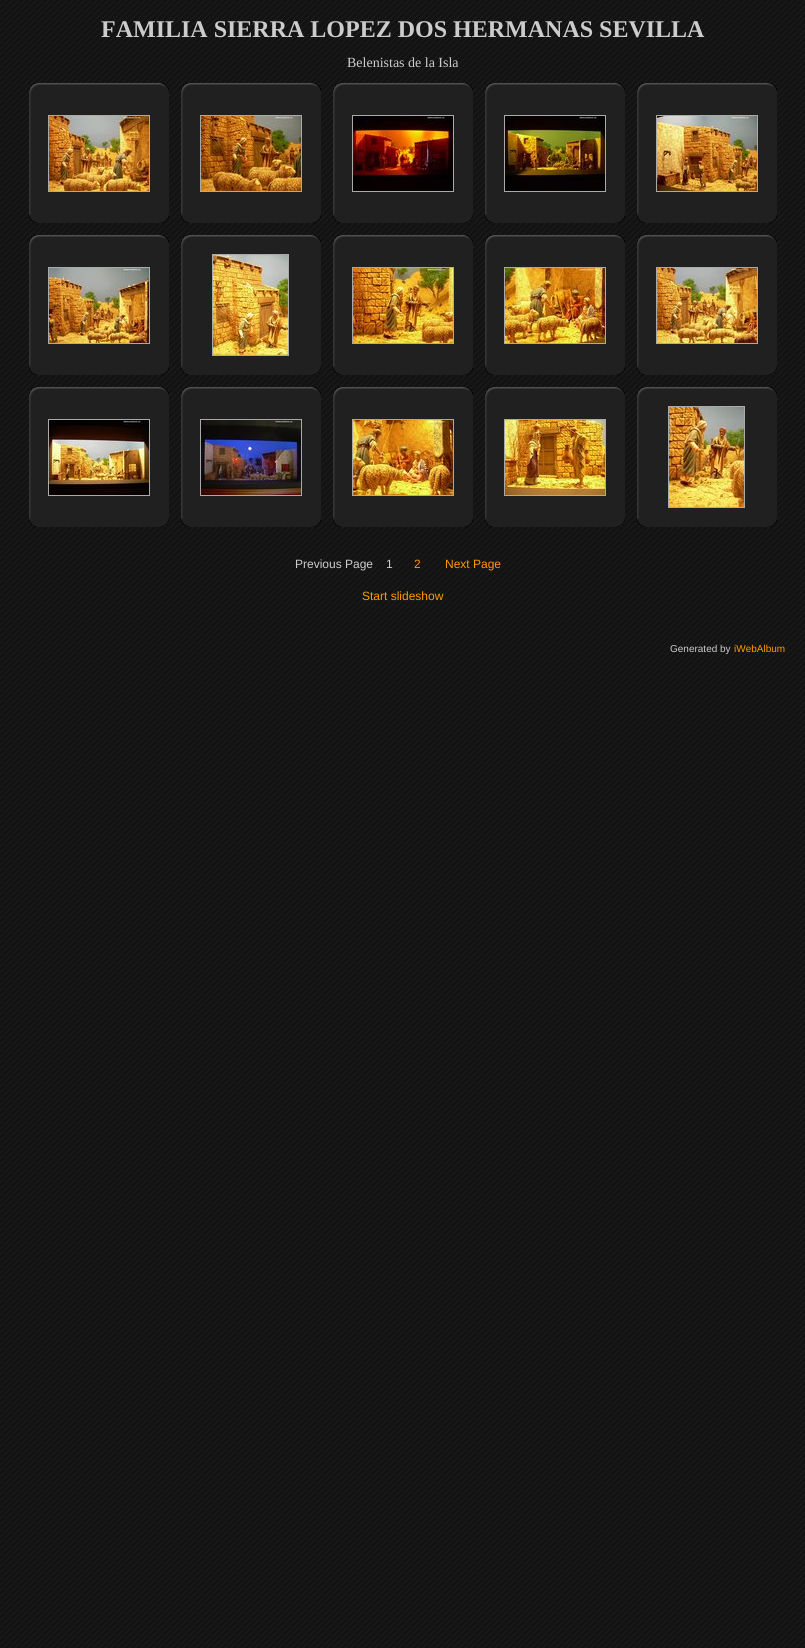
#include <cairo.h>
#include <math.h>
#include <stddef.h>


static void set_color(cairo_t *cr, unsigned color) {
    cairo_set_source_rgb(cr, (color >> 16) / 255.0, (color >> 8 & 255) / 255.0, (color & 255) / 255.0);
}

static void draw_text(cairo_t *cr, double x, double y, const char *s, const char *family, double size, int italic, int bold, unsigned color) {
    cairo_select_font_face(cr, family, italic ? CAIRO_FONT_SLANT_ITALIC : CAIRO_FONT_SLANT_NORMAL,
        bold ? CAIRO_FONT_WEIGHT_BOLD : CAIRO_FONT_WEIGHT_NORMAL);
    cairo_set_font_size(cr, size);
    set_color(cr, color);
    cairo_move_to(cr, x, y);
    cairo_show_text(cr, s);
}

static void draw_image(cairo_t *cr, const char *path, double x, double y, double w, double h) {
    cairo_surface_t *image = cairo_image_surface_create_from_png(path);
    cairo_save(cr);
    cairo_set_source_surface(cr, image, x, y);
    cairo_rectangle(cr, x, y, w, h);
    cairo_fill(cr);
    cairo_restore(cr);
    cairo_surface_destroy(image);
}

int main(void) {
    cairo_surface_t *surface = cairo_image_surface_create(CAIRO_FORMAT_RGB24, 805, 1648);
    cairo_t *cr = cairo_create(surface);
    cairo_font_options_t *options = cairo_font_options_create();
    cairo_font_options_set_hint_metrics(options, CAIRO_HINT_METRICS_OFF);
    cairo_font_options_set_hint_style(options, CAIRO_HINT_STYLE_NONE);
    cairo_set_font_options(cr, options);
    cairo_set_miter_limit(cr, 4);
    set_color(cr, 0xFFFFFF);
    cairo_paint(cr);
    draw_image(cr, "assets/img1.png", 0, 0, 805, 1648);
    draw_text(cr, 101, 37, "FAMILIA SIERRA LOPEZ DOS HERMANAS SEVILLA", "Liberation Serif", 24, 0, 1, 0xCCCCCC);
    draw_text(cr, 347, 67, "Belenistas de la Isla", "Liberation Serif", 14, 0, 0, 0xCCCCCC);
    draw_image(cr, "assets/img2.png", 29, 83, 140, 140);
    cairo_rectangle(cr, 48.5, 115.5, 101, 76);
    set_color(cr, 0xAAAAAA);
    cairo_set_line_width(cr, 1);
    cairo_stroke(cr);
    draw_image(cr, "assets/img3.png", 49, 116, 100, 75);
    draw_image(cr, "assets/img4.png", 181, 83, 140, 140);
    cairo_rectangle(cr, 200.5, 115.5, 101, 76);
    cairo_stroke(cr);
    draw_image(cr, "assets/img5.png", 201, 116, 100, 75);
    draw_image(cr, "assets/img6.png", 333, 83, 140, 140);
    cairo_rectangle(cr, 352.5, 115.5, 101, 76);
    cairo_stroke(cr);
    draw_image(cr, "assets/img7.png", 353, 116, 100, 75);
    draw_image(cr, "assets/img2.png", 485, 83, 140, 140);
    cairo_rectangle(cr, 504.5, 115.5, 101, 76);
    cairo_stroke(cr);
    draw_image(cr, "assets/img8.png", 505, 116, 100, 75);
    draw_image(cr, "assets/img4.png", 637, 83, 140, 140);
    cairo_rectangle(cr, 656.5, 115.5, 101, 76);
    cairo_stroke(cr);
    draw_image(cr, "assets/img9.png", 657, 116, 100, 75);
    draw_image(cr, "assets/img4.png", 29, 235, 140, 140);
    cairo_rectangle(cr, 48.5, 267.5, 101, 76);
    cairo_stroke(cr);
    draw_image(cr, "assets/img10.png", 49, 268, 100, 75);
    draw_image(cr, "assets/img6.png", 181, 235, 140, 140);
    cairo_rectangle(cr, 212.5, 254.5, 76, 101);
    cairo_stroke(cr);
    draw_image(cr, "assets/img11.png", 213, 255, 75, 100);
    draw_image(cr, "assets/img2.png", 333, 235, 140, 140);
    cairo_rectangle(cr, 352.5, 267.5, 101, 76);
    cairo_stroke(cr);
    draw_image(cr, "assets/img12.png", 353, 268, 100, 75);
    draw_image(cr, "assets/img4.png", 485, 235, 140, 140);
    cairo_rectangle(cr, 504.5, 267.5, 101, 76);
    cairo_stroke(cr);
    draw_image(cr, "assets/img13.png", 505, 268, 100, 75);
    draw_image(cr, "assets/img6.png", 637, 235, 140, 140);
    cairo_rectangle(cr, 656.5, 267.5, 101, 76);
    cairo_stroke(cr);
    draw_image(cr, "assets/img14.png", 657, 268, 100, 75);
    draw_image(cr, "assets/img6.png", 29, 387, 140, 140);
    cairo_rectangle(cr, 48.5, 419.5, 101, 76);
    cairo_stroke(cr);
    draw_image(cr, "assets/img15.png", 49, 420, 100, 75);
    draw_image(cr, "assets/img2.png", 181, 387, 140, 140);
    cairo_rectangle(cr, 200.5, 419.5, 101, 76);
    cairo_stroke(cr);
    draw_image(cr, "assets/img16.png", 201, 420, 100, 75);
    draw_image(cr, "assets/img4.png", 333, 387, 140, 140);
    cairo_rectangle(cr, 352.5, 419.5, 101, 76);
    cairo_stroke(cr);
    draw_image(cr, "assets/img17.png", 353, 420, 100, 75);
    draw_image(cr, "assets/img6.png", 485, 387, 140, 140);
    cairo_rectangle(cr, 504.5, 419.5, 101, 76);
    cairo_stroke(cr);
    draw_image(cr, "assets/img18.png", 505, 420, 100, 75);
    draw_image(cr, "assets/img2.png", 637, 387, 140, 140);
    cairo_rectangle(cr, 668.5, 406.5, 76, 101);
    cairo_stroke(cr);
    draw_image(cr, "assets/img19.png", 669, 407, 75, 100);
    draw_text(cr, 295, 568, "Previous Page", "Liberation Sans", 12, 0, 0, 0xCCCCCC);
    draw_text(cr, 386, 568, "1", "Liberation Sans", 12, 0, 0, 0xCCCCCC);
    draw_text(cr, 414, 568, "2", "Liberation Sans", 12, 0, 0, 0xFF9900);
    draw_text(cr, 445, 568, "Next Page", "Liberation Sans", 12, 0, 0, 0xFF9900);
    draw_text(cr, 362, 600, "Start slideshow", "Liberation Sans", 12, 0, 0, 0xFF9900);
    draw_text(cr, 670, 652, "Generated by", "Liberation Sans", 10, 0, 0, 0xCCCCCC);
    draw_text(cr, 734, 652, "iWebAlbum", "Liberation Sans", 10, 0, 0, 0xFF9900);
    cairo_surface_write_to_png(surface, "output.png");
    cairo_font_options_destroy(options);
    cairo_destroy(cr);
    cairo_surface_destroy(surface);
    return 0;
}
